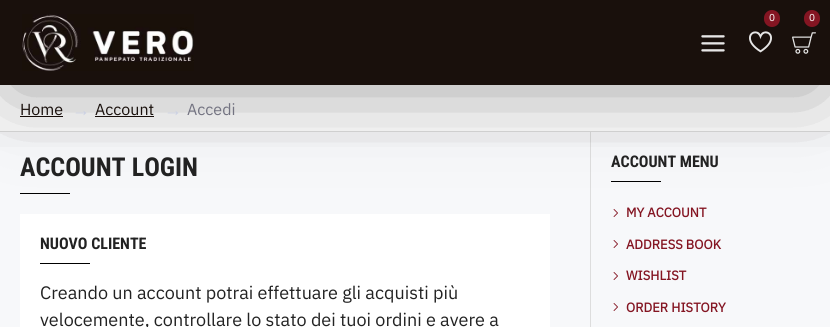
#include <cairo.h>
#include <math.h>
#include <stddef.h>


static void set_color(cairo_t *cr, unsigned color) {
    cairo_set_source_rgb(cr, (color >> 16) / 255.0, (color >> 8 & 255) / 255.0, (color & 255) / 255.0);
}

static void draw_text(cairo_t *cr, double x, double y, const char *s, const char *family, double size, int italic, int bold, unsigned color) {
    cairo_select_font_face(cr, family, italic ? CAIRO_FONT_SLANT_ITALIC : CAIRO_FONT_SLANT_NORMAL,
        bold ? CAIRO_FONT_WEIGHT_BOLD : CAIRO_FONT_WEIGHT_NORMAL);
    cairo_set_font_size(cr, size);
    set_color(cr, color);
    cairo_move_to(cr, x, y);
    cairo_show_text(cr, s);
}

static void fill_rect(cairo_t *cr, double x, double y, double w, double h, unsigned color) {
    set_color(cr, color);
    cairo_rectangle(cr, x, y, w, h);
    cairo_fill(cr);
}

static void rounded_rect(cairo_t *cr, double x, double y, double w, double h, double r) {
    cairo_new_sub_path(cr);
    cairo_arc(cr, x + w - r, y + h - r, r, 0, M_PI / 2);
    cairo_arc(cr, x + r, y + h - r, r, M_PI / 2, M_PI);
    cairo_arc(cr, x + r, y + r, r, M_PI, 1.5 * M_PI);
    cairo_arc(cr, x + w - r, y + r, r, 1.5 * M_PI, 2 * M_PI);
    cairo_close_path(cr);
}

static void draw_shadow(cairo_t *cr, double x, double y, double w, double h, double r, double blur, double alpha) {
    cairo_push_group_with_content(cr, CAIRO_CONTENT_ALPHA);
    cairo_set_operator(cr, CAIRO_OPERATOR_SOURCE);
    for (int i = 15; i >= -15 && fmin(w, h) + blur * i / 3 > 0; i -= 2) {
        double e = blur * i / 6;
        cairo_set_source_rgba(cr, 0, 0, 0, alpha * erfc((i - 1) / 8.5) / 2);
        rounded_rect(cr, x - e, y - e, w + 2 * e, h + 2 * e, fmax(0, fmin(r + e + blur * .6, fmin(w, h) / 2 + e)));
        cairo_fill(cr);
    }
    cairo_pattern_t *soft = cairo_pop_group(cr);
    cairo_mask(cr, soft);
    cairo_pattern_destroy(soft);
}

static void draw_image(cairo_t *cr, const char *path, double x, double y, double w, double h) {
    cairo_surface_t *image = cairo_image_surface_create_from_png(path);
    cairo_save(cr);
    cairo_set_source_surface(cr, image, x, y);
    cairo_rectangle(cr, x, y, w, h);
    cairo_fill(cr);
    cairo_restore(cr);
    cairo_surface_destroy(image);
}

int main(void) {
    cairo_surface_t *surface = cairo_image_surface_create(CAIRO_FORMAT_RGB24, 830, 327);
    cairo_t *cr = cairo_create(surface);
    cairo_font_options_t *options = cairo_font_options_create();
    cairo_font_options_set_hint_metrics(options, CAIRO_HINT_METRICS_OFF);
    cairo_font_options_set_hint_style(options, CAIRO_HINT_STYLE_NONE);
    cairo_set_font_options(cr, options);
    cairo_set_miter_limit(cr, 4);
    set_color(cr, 0xF7F8FA);
    cairo_paint(cr);
    fill_rect(cr, 0, 85, 830, 46, 0xFFFFFF);
    fill_rect(cr, 0, 131, 830, 1, 0xDDDDDD);
    fill_rect(cr, 20, 116, 43, 1, 0x19100C);
    fill_rect(cr, 95, 116, 59, 1, 0x19100C);
    fill_rect(cr, 20, 193, 50, 1, 0x000000);
    fill_rect(cr, 20, 214, 530, 113, 0xFFFFFF);
    fill_rect(cr, 590, 132, 1, 195, 0xDDDDDD);
    fill_rect(cr, 611, 181, 50, 1, 0x000000);
    draw_image(cr, "assets/img5.png", 613, 209, 5, 8);
    set_color(cr, 0x000000);
    draw_shadow(cr, 10, 25, 810, 65, 0, 45, 0.2);
    fill_rect(cr, 0, 0, 830, 85, 0x19100C);
    cairo_save(cr);
    cairo_rectangle(cr, 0, 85, 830, 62);
    cairo_clip(cr);
    set_color(cr, 0x000000);
    draw_shadow(cr, 10, 25, 810, 65, 0, 45, 0.2);
    cairo_restore(cr);
    draw_image(cr, "assets/img1.png", 22, 14, 172, 57);
    set_color(cr, 0x841522);
    rounded_rect(cr, 764, 10, 16, 17, 8);
    cairo_fill(cr);
    draw_text(cr, 769, 21, "0", "IBM Plex Sans", 10, 0, 0, 0xFFFFFF);
    draw_image(cr, "assets/img2.png", 749, 31, 23, 22);
    set_color(cr, 0x841522);
    rounded_rect(cr, 804, 10, 16, 17, 8);
    cairo_fill(cr);
    draw_text(cr, 809, 21, "0", "IBM Plex Sans", 10, 0, 0, 0xFFFFFF);
    draw_image(cr, "assets/img3.png", 792, 32, 24, 22);
    draw_image(cr, "assets/img4.png", 701, 35, 24, 17);
    draw_text(cr, 20, 115, "Home", "IBM Plex Sans", 16, 0, 0, 0x19100C);
    draw_text(cr, 72, 116, "→", "Liberation Serif", 18, 0, 0, 0xCBD1E3);
    draw_text(cr, 95, 115, "Account", "IBM Plex Sans", 16, 0, 0, 0x19100C);
    draw_text(cr, 164, 116, "→", "Liberation Serif", 18, 0, 0, 0xCBD1E3);
    draw_text(cr, 187, 115, "Accedi", "IBM Plex Sans", 16, 0, 0, 0x737381);
    draw_text(cr, 20, 176, "ACCOUNT LOGIN", "Roboto Condensed", 26, 0, 1, 0x222222);
    draw_text(cr, 40, 249, "NUOVO CLIENTE", "Roboto Condensed", 16, 0, 1, 0x222222);
    fill_rect(cr, 40, 263, 50, 1, 0x000000);
    draw_text(cr, 40, 299, "Creando un account potrai effettuare gli acquisti più", "IBM Plex Sans", 18, 0, 0, 0x222222);
    draw_text(cr, 40, 326, "velocemente, controllare lo stato dei tuoi ordini e avere a", "IBM Plex Sans", 18, 0, 0, 0x222222);
    draw_text(cr, 611, 167, "ACCOUNT MENU", "Roboto Condensed", 16, 0, 1, 0x222222);
    draw_text(cr, 626, 217, "MY ACCOUNT", "IBM Plex Sans", 13, 0, 1, 0x841522);
    draw_image(cr, "assets/img5.png", 613, 240, 5, 8);
    draw_text(cr, 626, 249, "ADDRESS BOOK", "IBM Plex Sans", 13, 0, 1, 0x841522);
    draw_image(cr, "assets/img5.png", 613, 272, 5, 8);
    draw_text(cr, 626, 280, "WISHLIST", "IBM Plex Sans", 13, 0, 1, 0x841522);
    draw_image(cr, "assets/img5.png", 613, 303, 5, 8);
    draw_text(cr, 626, 312, "ORDER HISTORY", "IBM Plex Sans", 13, 0, 1, 0x841522);
    cairo_surface_write_to_png(surface, "output.png");
    cairo_font_options_destroy(options);
    cairo_destroy(cr);
    cairo_surface_destroy(surface);
    return 0;
}
